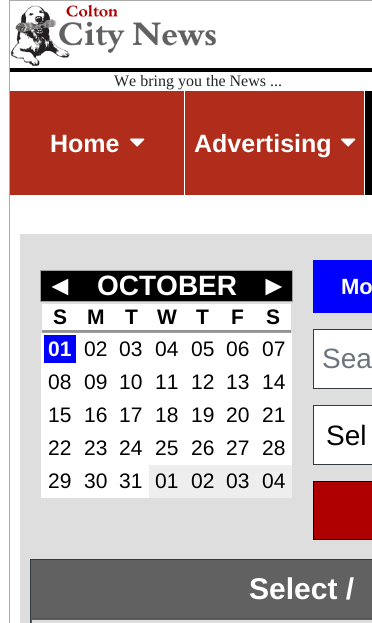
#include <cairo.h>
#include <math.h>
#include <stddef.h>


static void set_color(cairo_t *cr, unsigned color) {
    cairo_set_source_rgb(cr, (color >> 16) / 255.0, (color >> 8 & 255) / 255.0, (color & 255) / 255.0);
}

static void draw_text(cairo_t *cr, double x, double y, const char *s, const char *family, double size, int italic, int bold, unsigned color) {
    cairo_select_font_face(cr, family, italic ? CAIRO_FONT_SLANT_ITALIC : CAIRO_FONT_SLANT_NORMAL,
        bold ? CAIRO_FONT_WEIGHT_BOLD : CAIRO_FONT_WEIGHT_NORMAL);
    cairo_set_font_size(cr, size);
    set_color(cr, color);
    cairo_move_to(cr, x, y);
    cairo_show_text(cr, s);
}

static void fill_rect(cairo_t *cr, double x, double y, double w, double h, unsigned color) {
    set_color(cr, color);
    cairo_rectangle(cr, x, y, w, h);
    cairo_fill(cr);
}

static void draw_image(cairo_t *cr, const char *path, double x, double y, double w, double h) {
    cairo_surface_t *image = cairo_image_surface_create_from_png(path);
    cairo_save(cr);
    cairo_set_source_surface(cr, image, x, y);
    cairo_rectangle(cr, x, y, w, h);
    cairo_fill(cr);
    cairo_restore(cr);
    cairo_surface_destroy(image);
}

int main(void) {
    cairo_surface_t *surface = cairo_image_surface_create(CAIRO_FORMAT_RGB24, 372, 623);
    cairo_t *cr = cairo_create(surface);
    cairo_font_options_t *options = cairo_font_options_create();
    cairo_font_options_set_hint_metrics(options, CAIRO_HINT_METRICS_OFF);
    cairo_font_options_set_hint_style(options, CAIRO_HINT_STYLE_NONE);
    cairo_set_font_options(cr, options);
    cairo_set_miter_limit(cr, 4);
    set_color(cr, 0xFFFFFF);
    cairo_paint(cr);
    cairo_rectangle(cr, 9.5, 0.5, 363, 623);
    set_color(cr, 0xAAAAAA);
    cairo_set_line_width(cr, 1);
    cairo_stroke(cr);
    draw_image(cr, "assets/img1.png", 10, 4, 206, 63);
    fill_rect(cr, 10, 68, 362, 4, 0x000000);
    draw_text(cr, 114, 86, "We bring you the News ...", "Liberation Serif", 16, 0, 0, 0x212529);
    fill_rect(cr, 10, 91, 354, 104, 0xAF2D1A);
    fill_rect(cr, 184, 91, 1, 104, 0xFFFFFF);
    draw_text(cr, 50, 152, "Home", "Liberation Sans", 25, 0, 1, 0xFFFFFF);
    draw_image(cr, "assets/img2.png", 130, 138, 15, 9);
    draw_text(cr, 194, 152, "Advertising", "Liberation Sans", 25, 0, 1, 0xFFFFFF);
    draw_image(cr, "assets/img2.png", 341, 138, 15, 9);
    fill_rect(cr, 365, 91, 7, 104, 0x000000);
    fill_rect(cr, 20, 234, 352, 389, 0xDEDEDE);
    fill_rect(cr, 41, 271, 251, 30, 0x000000);
    fill_rect(cr, 40, 270, 253, 1, 0xA0A0A0);
    fill_rect(cr, 292, 270, 1, 32, 0xA0A0A0);
    fill_rect(cr, 40, 301, 253, 1, 0xA0A0A0);
    fill_rect(cr, 40, 270, 1, 32, 0xA0A0A0);
    draw_text(cr, 46, 295, "◄", "Liberation Sans", 28, 0, 1, 0xFFFFFF);
    draw_text(cr, 97, 295, "OCTOBER", "Liberation Sans", 28, 0, 1, 0xFFFFFF);
    draw_text(cr, 260, 295, "►", "Liberation Sans", 28, 0, 1, 0xFFFFFF);
    fill_rect(cr, 41, 330, 251, 2, 0x939393);
    fill_rect(cr, 41, 332, 252, 1, 0xA0A0A0);
    fill_rect(cr, 291, 330, 2, 3, 0xDEDEDE);
    fill_rect(cr, 41, 330, 1, 3, 0xDEDEDE);
    fill_rect(cr, 42, 304, 249, 26, 0xFFFFFF);
    draw_text(cr, 53, 324, "S", "Liberation Sans", 21, 0, 1, 0x000000);
    draw_text(cr, 87, 324, "M", "Liberation Sans", 21, 0, 1, 0x000000);
    draw_text(cr, 125, 324, "T", "Liberation Sans", 21, 0, 1, 0x000000);
    draw_text(cr, 157, 324, "W", "Liberation Sans", 21, 0, 1, 0x000000);
    draw_text(cr, 196, 324, "T", "Liberation Sans", 21, 0, 1, 0x000000);
    draw_text(cr, 231, 324, "F", "Liberation Sans", 21, 0, 1, 0x000000);
    draw_text(cr, 266, 324, "S", "Liberation Sans", 21, 0, 1, 0x000000);
    fill_rect(cr, 41, 333, 251, 33, 0xFFFFFF);
    fill_rect(cr, 44, 335, 32, 28, 0x0000FF);
    draw_text(cr, 48, 356, "01", "Liberation Sans", 21, 0, 1, 0xFFFFFF);
    draw_text(cr, 84, 356, "02", "Liberation Sans", 21, 0, 0, 0x000000);
    draw_text(cr, 119, 356, "03", "Liberation Sans", 21, 0, 0, 0x000000);
    draw_text(cr, 155, 356, "04", "Liberation Sans", 21, 0, 0, 0x000000);
    draw_text(cr, 191, 356, "05", "Liberation Sans", 21, 0, 0, 0x000000);
    draw_text(cr, 226, 356, "06", "Liberation Sans", 21, 0, 0, 0x000000);
    draw_text(cr, 262, 356, "07", "Liberation Sans", 21, 0, 0, 0x000000);
    fill_rect(cr, 41, 366, 251, 33, 0xFFFFFF);
    draw_text(cr, 48, 389, "08", "Liberation Sans", 21, 0, 0, 0x000000);
    draw_text(cr, 84, 389, "09", "Liberation Sans", 21, 0, 0, 0x000000);
    draw_text(cr, 119, 389, "10", "Liberation Sans", 21, 0, 0, 0x000000);
    draw_text(cr, 155, 389, "11", "Liberation Sans", 21, 0, 0, 0x000000);
    draw_text(cr, 191, 389, "12", "Liberation Sans", 21, 0, 0, 0x000000);
    draw_text(cr, 226, 389, "13", "Liberation Sans", 21, 0, 0, 0x000000);
    draw_text(cr, 262, 389, "14", "Liberation Sans", 21, 0, 0, 0x000000);
    fill_rect(cr, 41, 399, 251, 33, 0xFFFFFF);
    draw_text(cr, 48, 422, "15", "Liberation Sans", 21, 0, 0, 0x000000);
    draw_text(cr, 84, 422, "16", "Liberation Sans", 21, 0, 0, 0x000000);
    draw_text(cr, 119, 422, "17", "Liberation Sans", 21, 0, 0, 0x000000);
    draw_text(cr, 155, 422, "18", "Liberation Sans", 21, 0, 0, 0x000000);
    draw_text(cr, 191, 422, "19", "Liberation Sans", 21, 0, 0, 0x000000);
    draw_text(cr, 226, 422, "20", "Liberation Sans", 21, 0, 0, 0x000000);
    draw_text(cr, 262, 422, "21", "Liberation Sans", 21, 0, 0, 0x000000);
    fill_rect(cr, 41, 432, 251, 33, 0xFFFFFF);
    draw_text(cr, 48, 455, "22", "Liberation Sans", 21, 0, 0, 0x000000);
    draw_text(cr, 84, 455, "23", "Liberation Sans", 21, 0, 0, 0x000000);
    draw_text(cr, 119, 455, "24", "Liberation Sans", 21, 0, 0, 0x000000);
    draw_text(cr, 155, 455, "25", "Liberation Sans", 21, 0, 0, 0x000000);
    draw_text(cr, 191, 455, "26", "Liberation Sans", 21, 0, 0, 0x000000);
    draw_text(cr, 226, 455, "27", "Liberation Sans", 21, 0, 0, 0x000000);
    draw_text(cr, 262, 455, "28", "Liberation Sans", 21, 0, 0, 0x000000);
    fill_rect(cr, 41, 465, 108, 33, 0xFFFFFF);
    draw_text(cr, 48, 488, "29", "Liberation Sans", 21, 0, 0, 0x000000);
    draw_text(cr, 84, 488, "30", "Liberation Sans", 21, 0, 0, 0x000000);
    draw_text(cr, 119, 488, "31", "Liberation Sans", 21, 0, 0, 0x000000);
    fill_rect(cr, 149, 465, 143, 33, 0xEEEEEE);
    draw_text(cr, 155, 488, "01", "Liberation Sans", 21, 0, 0, 0x000000);
    draw_text(cr, 191, 488, "02", "Liberation Sans", 21, 0, 0, 0x000000);
    draw_text(cr, 226, 488, "03", "Liberation Sans", 21, 0, 0, 0x000000);
    draw_text(cr, 262, 488, "04", "Liberation Sans", 21, 0, 0, 0x000000);
    fill_rect(cr, 313, 260, 59, 53, 0x0000FF);
    draw_text(cr, 341, 294, "Mo", "Liberation Sans", 22, 0, 1, 0xFFFFFF);
    cairo_rectangle(cr, 313.5, 329.5, 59, 59);
    cairo_fill_preserve(cr);
    set_color(cr, 0x343A40);
    cairo_stroke(cr);
    draw_text(cr, 322, 368, "Sea", "Liberation Sans", 28, 0, 0, 0x6C757D);
    set_color(cr, 0xFFFFFF);
    cairo_rectangle(cr, 313.5, 405.5, 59, 59);
    cairo_fill_preserve(cr);
    set_color(cr, 0x343A40);
    cairo_stroke(cr);
    draw_text(cr, 326, 445, "Sel", "Liberation Sans", 28, 0, 0, 0x000000);
    set_color(cr, 0xAE0000);
    cairo_rectangle(cr, 313.5, 481.5, 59, 58);
    cairo_fill_preserve(cr);
    set_color(cr, 0x000000);
    cairo_stroke(cr);
    cairo_rectangle(cr, 30.5, 559.5, 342, 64);
    set_color(cr, 0x343A40);
    cairo_stroke(cr);
    fill_rect(cr, 31, 560, 341, 58, 0x616161);
    fill_rect(cr, 31, 618, 341, 1, 0x555555);
    draw_text(cr, 249, 599, "Select /", "Liberation Sans", 30, 0, 1, 0xFFFFFF);
    cairo_rectangle(cr, 31.5, 619.5, 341, 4);
    set_color(cr, 0x616161);
    cairo_stroke(cr);
    cairo_surface_write_to_png(surface, "output.png");
    cairo_font_options_destroy(options);
    cairo_destroy(cr);
    cairo_surface_destroy(surface);
    return 0;
}
